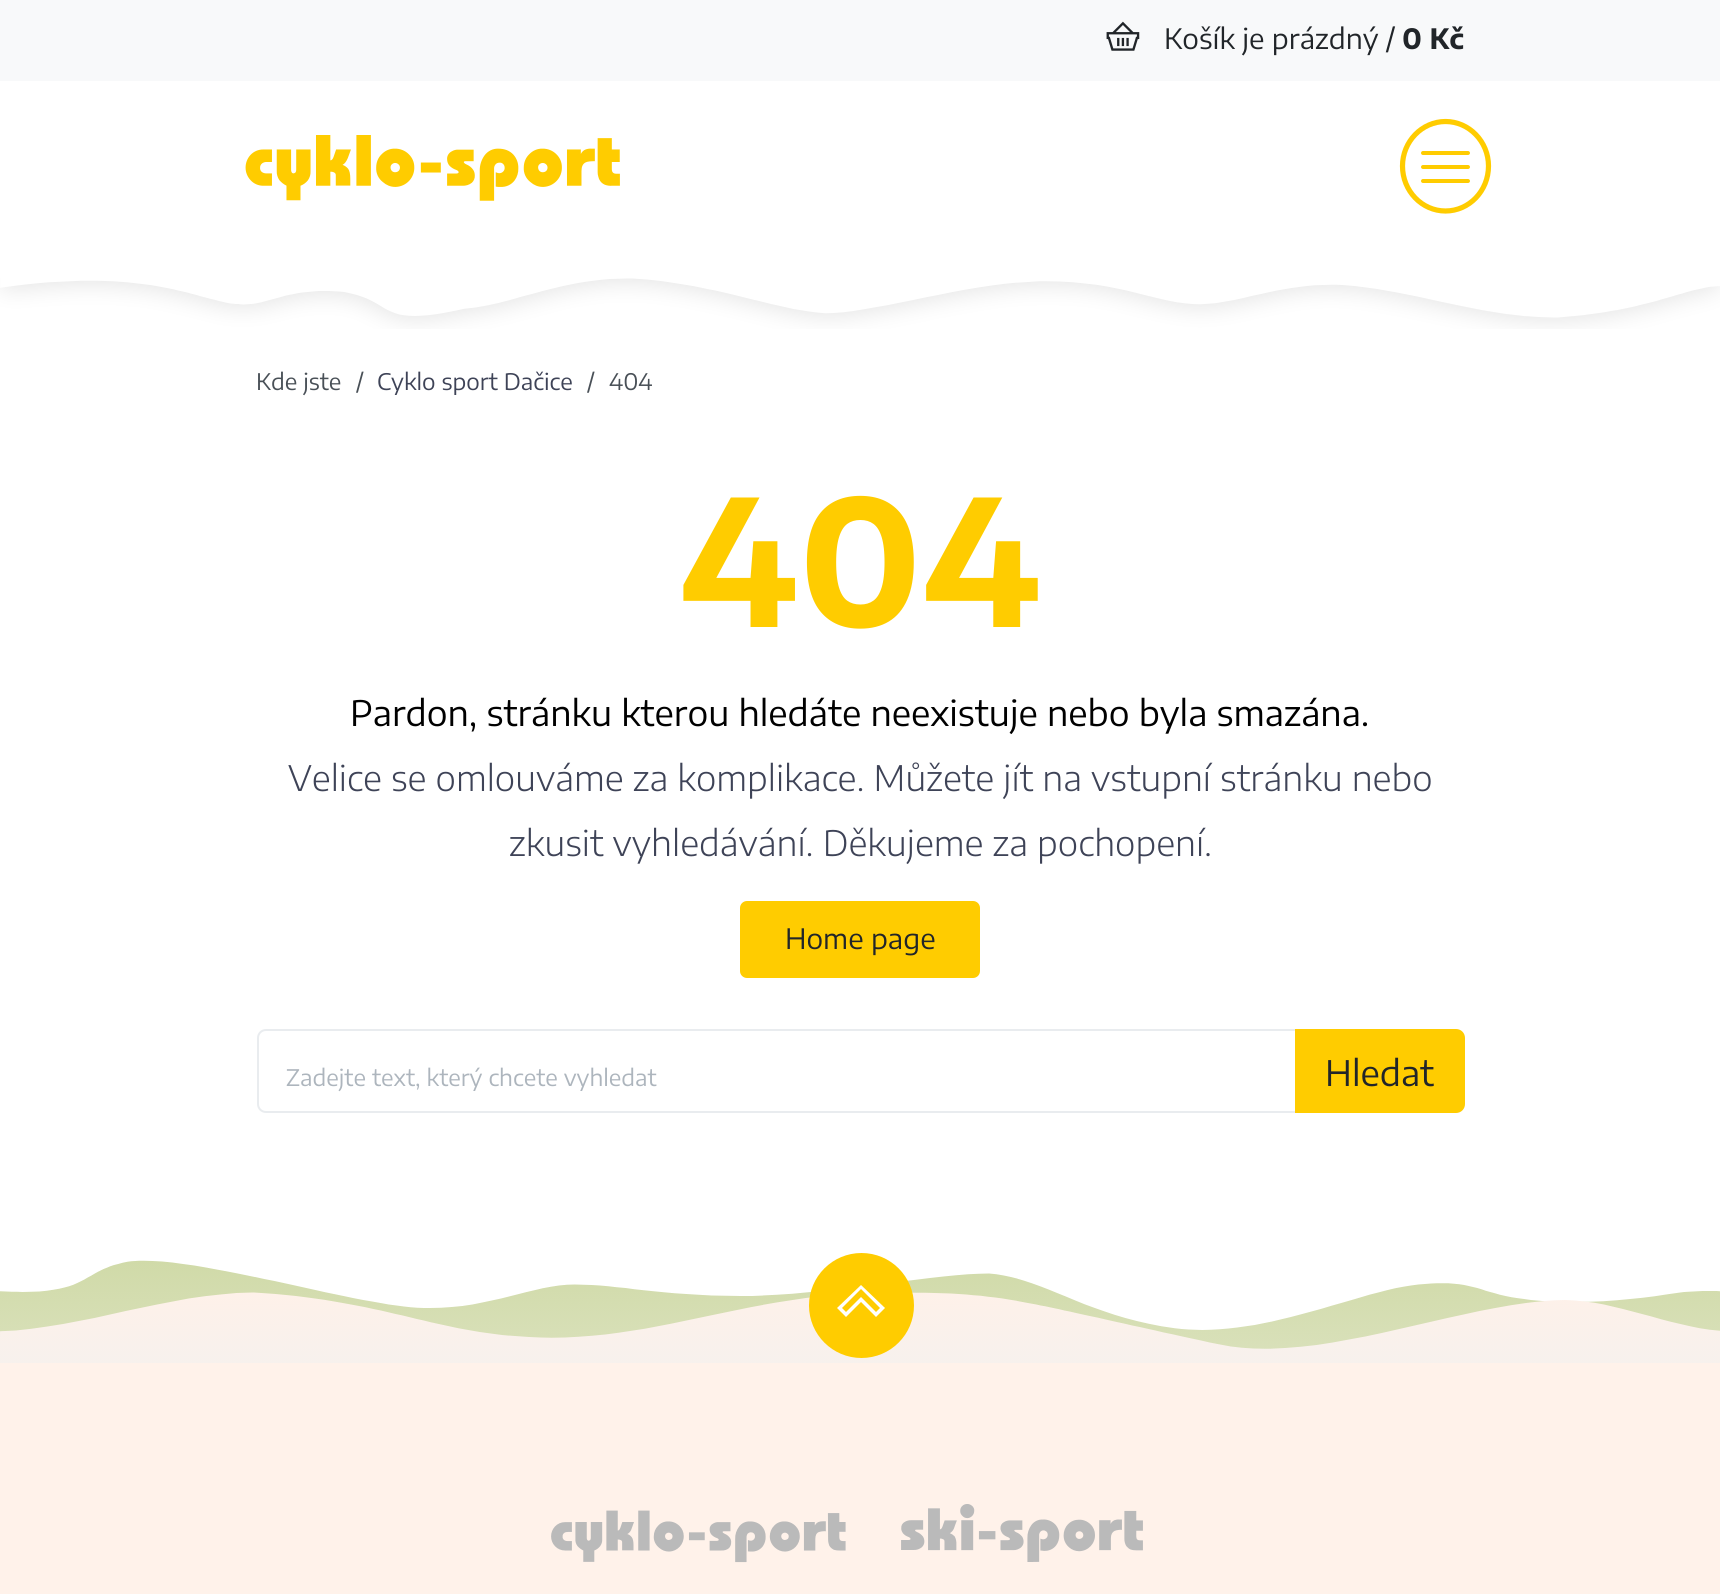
#include <cairo.h>
#include <math.h>
#include <stddef.h>


static void set_color(cairo_t *cr, unsigned color) {
    cairo_set_source_rgb(cr, (color >> 16) / 255.0, (color >> 8 & 255) / 255.0, (color & 255) / 255.0);
}

static void draw_text(cairo_t *cr, double x, double y, const char *s, const char *family, double size, int italic, int bold, unsigned color) {
    cairo_select_font_face(cr, family, italic ? CAIRO_FONT_SLANT_ITALIC : CAIRO_FONT_SLANT_NORMAL,
        bold ? CAIRO_FONT_WEIGHT_BOLD : CAIRO_FONT_WEIGHT_NORMAL);
    cairo_set_font_size(cr, size);
    set_color(cr, color);
    cairo_move_to(cr, x, y);
    cairo_show_text(cr, s);
}

static void fill_rect(cairo_t *cr, double x, double y, double w, double h, unsigned color) {
    set_color(cr, color);
    cairo_rectangle(cr, x, y, w, h);
    cairo_fill(cr);
}

static void rounded_rect(cairo_t *cr, double x, double y, double w, double h, double r) {
    cairo_new_sub_path(cr);
    cairo_arc(cr, x + w - r, y + h - r, r, 0, M_PI / 2);
    cairo_arc(cr, x + r, y + h - r, r, M_PI / 2, M_PI);
    cairo_arc(cr, x + r, y + r, r, M_PI, 1.5 * M_PI);
    cairo_arc(cr, x + w - r, y + r, r, 1.5 * M_PI, 2 * M_PI);
    cairo_close_path(cr);
}

static void draw_image(cairo_t *cr, const char *path, double x, double y, double w, double h) {
    cairo_surface_t *image = cairo_image_surface_create_from_png(path);
    cairo_save(cr);
    cairo_set_source_surface(cr, image, x, y);
    cairo_rectangle(cr, x, y, w, h);
    cairo_fill(cr);
    cairo_restore(cr);
    cairo_surface_destroy(image);
}

int main(void) {
    cairo_surface_t *surface = cairo_image_surface_create(CAIRO_FORMAT_RGB24, 1720, 1594);
    cairo_t *cr = cairo_create(surface);
    cairo_font_options_t *options = cairo_font_options_create();
    cairo_font_options_set_hint_metrics(options, CAIRO_HINT_METRICS_OFF);
    cairo_font_options_set_hint_style(options, CAIRO_HINT_STYLE_NONE);
    cairo_set_font_options(cr, options);
    cairo_set_miter_limit(cr, 4);
    set_color(cr, 0xFFFFFF);
    cairo_paint(cr);
    fill_rect(cr, 0, 0, 1720, 81, 0xF8F9FA);
    draw_image(cr, "assets/img1.png", 1106, 21, 34, 30);
    draw_text(cr, 1164, 49, "Košík je prázdný /", "Encode Sans Semi Expanded", 28, 0, 0, 0x212529);
    draw_text(cr, 1402, 49, "0 Kč", "Encode Sans Semi Expanded", 28, 0, 1, 0x212529);
    draw_image(cr, "assets/img2.png", 0, 278, 1720, 51);
    draw_image(cr, "assets/img3.png", 245, 135, 375, 66);
    cairo_new_path(cr);
    cairo_move_to(cr, 1445.5, 121.5);
    cairo_curve_to(cr, 1469, 121.5, 1488.5, 141.5, 1488.5, 166);
    cairo_curve_to(cr, 1488.5, 191, 1469, 211, 1445.5, 211);
    cairo_curve_to(cr, 1422, 211, 1402.5, 191, 1402.5, 166);
    cairo_curve_to(cr, 1402.5, 141.5, 1422, 121.5, 1445.5, 121.5);
    cairo_close_path(cr);
    set_color(cr, 0xFFCC00);
    cairo_set_line_width(cr, 5.2);
    cairo_stroke(cr);
    rounded_rect(cr, 1421, 151, 49, 4, 2);
    cairo_fill(cr);
    rounded_rect(cr, 1421, 165, 49, 4, 2);
    cairo_fill(cr);
    rounded_rect(cr, 1421, 179, 49, 4, 2);
    cairo_fill(cr);
    draw_text(cr, 256, 390, "Kde jste", "Encode Sans Semi Expanded", 22.75, 0, 0, 0x495057);
    draw_text(cr, 356, 390, "/", "Encode Sans Semi Expanded", 22.75, 0, 0, 0x495057);
    draw_text(cr, 377, 390, "Cyklo sport Dačice", "Encode Sans Semi Expanded", 22.75, 0, 0, 0x3E4357);
    draw_text(cr, 587, 390, "/", "Encode Sans Semi Expanded", 22.75, 0, 0, 0x495057);
    draw_text(cr, 609, 390, "404", "Encode Sans Semi Expanded", 22.75, 0, 0, 0x495057);
    draw_text(cr, 680, 627, "404", "Encode Sans Semi Expanded", 175, 0, 1, 0xFFCC00);
    draw_text(cr, 350, 726, "Pardon, stránku kterou hledáte neexistuje nebo byla smazána.", "Encode Sans Semi Expanded", 35, 0, 0, 0x000000);
    draw_text(cr, 288, 791, "Velice se omlouváme za komplikace. Můžete jít na vstupní stránku nebo", "Encode Sans Semi Expanded Light", 35, 0, 0, 0x3E4357);
    draw_text(cr, 509, 856, "zkusit vyhledávání. Děkujeme za pochopení.", "Encode Sans Semi Expanded Light", 35, 0, 0, 0x3E4357);
    set_color(cr, 0xFFCC00);
    rounded_rect(cr, 741, 902, 238, 75, 6);
    cairo_fill_preserve(cr);
    cairo_set_line_width(cr, 2);
    cairo_stroke(cr);
    draw_text(cr, 785, 949, "Home page", "Encode Sans Semi Expanded", 28, 0, 0, 0x212529);
    cairo_new_path(cr);
    cairo_move_to(cr, 266, 1030);
    cairo_line_to(cr, 1296, 1030);
    cairo_line_to(cr, 1296, 1112);
    cairo_line_to(cr, 266, 1112);
    cairo_curve_to(cr, 261.5, 1112, 258, 1108.5, 258, 1104);
    cairo_line_to(cr, 258, 1038);
    cairo_curve_to(cr, 258, 1033.5, 261.5, 1030, 266, 1030);
    cairo_close_path(cr);
    set_color(cr, 0xE9ECEF);
    cairo_stroke(cr);
    draw_text(cr, 286, 1086, "Zadejte text, který chcete vyhledat", "Encode Sans Semi Expanded", 22.75, 0, 0, 0xADB5BD);
    set_color(cr, 0xFFCC00);
    cairo_new_path(cr);
    cairo_move_to(cr, 1296, 1030);
    cairo_line_to(cr, 1456, 1030);
    cairo_curve_to(cr, 1460.5, 1030, 1464, 1033.5, 1464, 1038);
    cairo_line_to(cr, 1464, 1104);
    cairo_curve_to(cr, 1464, 1108.5, 1460.5, 1112, 1456, 1112);
    cairo_line_to(cr, 1296, 1112);
    cairo_close_path(cr);
    cairo_fill_preserve(cr);
    cairo_stroke(cr);
    draw_text(cr, 1325, 1086, "Hledat", "Encode Sans Semi Expanded", 35, 0, 0, 0x212529);
    draw_image(cr, "assets/img4.png", 0, 1260, 1720, 103);
    set_color(cr, 0xFFCC00);
    cairo_arc(cr, 861.5, 1305.5, 52.5, 0, 2 * M_PI);
    cairo_fill(cr);
    set_color(cr, 0xFFFFFF);
    cairo_new_path(cr);
    cairo_move_to(cr, 861, 1285);
    cairo_line_to(cr, 837, 1308);
    cairo_line_to(cr, 846, 1317);
    cairo_line_to(cr, 861, 1302);
    cairo_line_to(cr, 876, 1317);
    cairo_line_to(cr, 885, 1308);
    cairo_close_path(cr);
    cairo_move_to(cr, 861, 1289);
    cairo_line_to(cr, 880, 1308);
    cairo_line_to(cr, 876, 1312);
    cairo_line_to(cr, 861, 1297);
    cairo_line_to(cr, 846, 1312);
    cairo_line_to(cr, 842, 1308);
    cairo_close_path(cr);
    cairo_fill(cr);
    fill_rect(cr, 0, 1363, 1720, 231, 0xFFF2EA);
    draw_image(cr, "assets/img5.png", 551, 1510, 295, 53);
    draw_image(cr, "assets/img6.png", 901, 1504, 242, 58);
    cairo_surface_write_to_png(surface, "output.png");
    cairo_font_options_destroy(options);
    cairo_destroy(cr);
    cairo_surface_destroy(surface);
    return 0;
}
